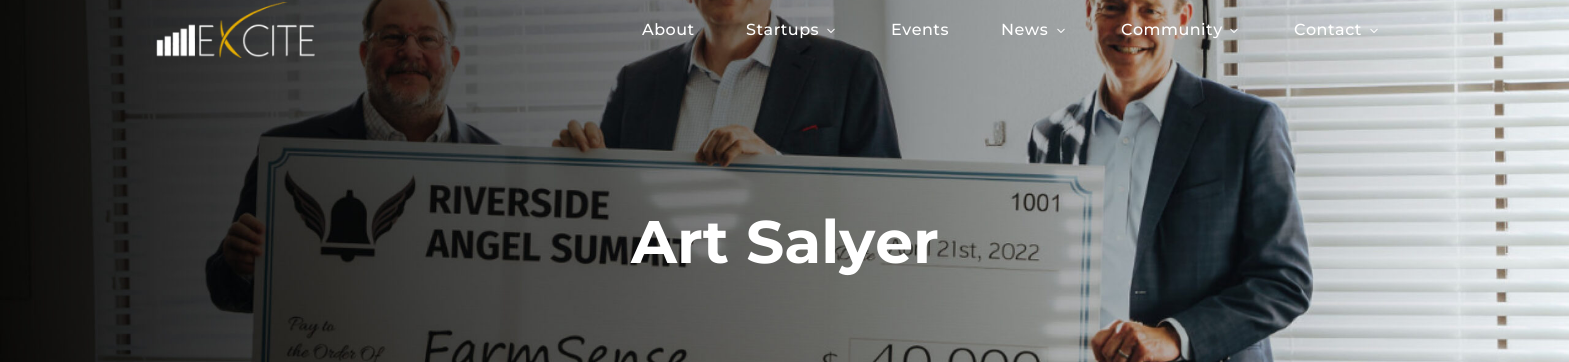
#include <cairo.h>
#include <math.h>
#include <stddef.h>


static void set_color(cairo_t *cr, unsigned color) {
    cairo_set_source_rgb(cr, (color >> 16) / 255.0, (color >> 8 & 255) / 255.0, (color & 255) / 255.0);
}

static void draw_text(cairo_t *cr, double x, double y, const char *s, const char *family, double size, int italic, int bold, unsigned color) {
    cairo_select_font_face(cr, family, italic ? CAIRO_FONT_SLANT_ITALIC : CAIRO_FONT_SLANT_NORMAL,
        bold ? CAIRO_FONT_WEIGHT_BOLD : CAIRO_FONT_WEIGHT_NORMAL);
    cairo_set_font_size(cr, size);
    set_color(cr, color);
    cairo_move_to(cr, x, y);
    cairo_show_text(cr, s);
}

static void draw_spaced(cairo_t *cr, double x, double y, const char *s, double letter, double word) {
    cairo_move_to(cr, x, y);
    while (*s) {
        char ch[5] = {0};
        int n = 0;
        do ch[n++] = *s++; while ((*s & 0xC0) == 0x80);
        cairo_show_text(cr, ch);
        cairo_rel_move_to(cr, letter + word * (*ch == ' '), 0);
    }
}

static void draw_image(cairo_t *cr, const char *path, double x, double y, double w, double h) {
    cairo_surface_t *image = cairo_image_surface_create_from_png(path);
    cairo_save(cr);
    cairo_set_source_surface(cr, image, x, y);
    cairo_rectangle(cr, x, y, w, h);
    cairo_fill(cr);
    cairo_restore(cr);
    cairo_surface_destroy(image);
}

int main(void) {
    cairo_surface_t *surface = cairo_image_surface_create(CAIRO_FORMAT_RGB24, 1569, 362);
    cairo_t *cr = cairo_create(surface);
    cairo_font_options_t *options = cairo_font_options_create();
    cairo_font_options_set_hint_metrics(options, CAIRO_HINT_METRICS_OFF);
    cairo_font_options_set_hint_style(options, CAIRO_HINT_STYLE_NONE);
    cairo_set_font_options(cr, options);
    cairo_set_miter_limit(cr, 4);
    set_color(cr, 0xFFFFFF);
    cairo_paint(cr);
    draw_image(cr, "assets/img6.png", 0, 0, 1569, 362);
    draw_image(cr, "assets/img1.png", 156, 2, 159, 56);
    cairo_select_font_face(cr, "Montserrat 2 Thin", CAIRO_FONT_SLANT_NORMAL, CAIRO_FONT_WEIGHT_NORMAL);
    cairo_set_font_size(cr, 16);
    set_color(cr, 0xFFFFFF);
    draw_spaced(cr, 642, 35, "About", 0.5, 0);
    draw_spaced(cr, 746, 35, "Startups", 0.5, 0);
    draw_image(cr, "assets/img2.png", 827, 28, 8, 5);
    draw_spaced(cr, 891, 35, "Events", 0.5, 0);
    draw_spaced(cr, 1001, 35, "News", 0.5, 0);
    draw_image(cr, "assets/img3.png", 1057, 28, 8, 5);
    draw_spaced(cr, 1121, 35, "Community", 0.5, 0);
    draw_image(cr, "assets/img4.png", 1230, 28, 8, 5);
    draw_spaced(cr, 1294, 35, "Contact", 0.5, 0);
    draw_image(cr, "assets/img5.png", 1370, 28, 8, 5);
    draw_text(cr, 631, 263, "Art Salyer", "Montserrat Thin", 60, 0, 0, 0xFFFFFF);
    cairo_surface_write_to_png(surface, "output.png");
    cairo_font_options_destroy(options);
    cairo_destroy(cr);
    cairo_surface_destroy(surface);
    return 0;
}
